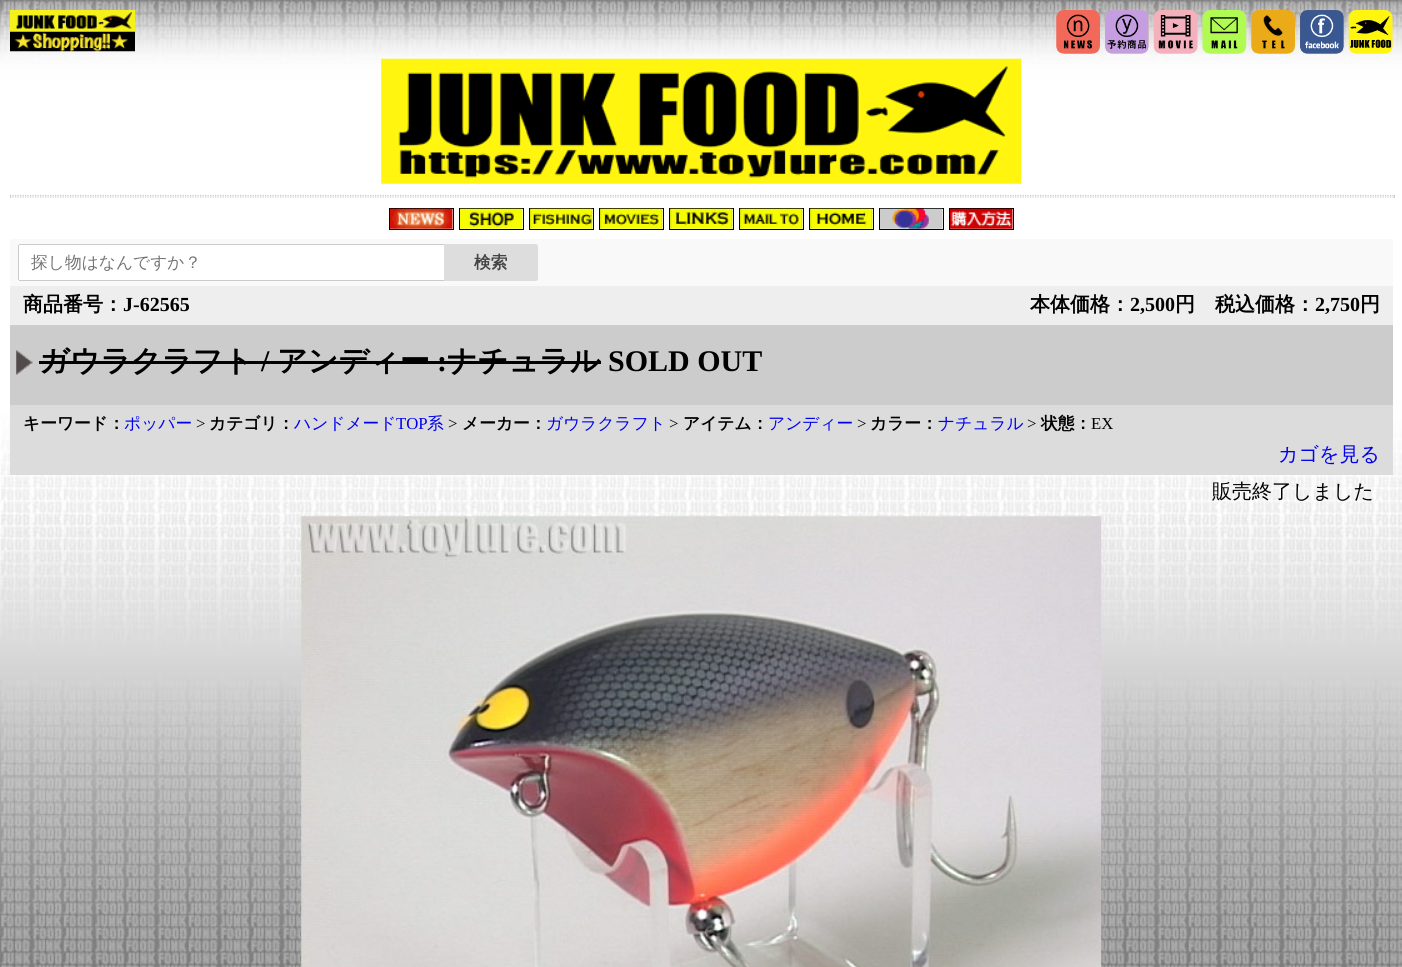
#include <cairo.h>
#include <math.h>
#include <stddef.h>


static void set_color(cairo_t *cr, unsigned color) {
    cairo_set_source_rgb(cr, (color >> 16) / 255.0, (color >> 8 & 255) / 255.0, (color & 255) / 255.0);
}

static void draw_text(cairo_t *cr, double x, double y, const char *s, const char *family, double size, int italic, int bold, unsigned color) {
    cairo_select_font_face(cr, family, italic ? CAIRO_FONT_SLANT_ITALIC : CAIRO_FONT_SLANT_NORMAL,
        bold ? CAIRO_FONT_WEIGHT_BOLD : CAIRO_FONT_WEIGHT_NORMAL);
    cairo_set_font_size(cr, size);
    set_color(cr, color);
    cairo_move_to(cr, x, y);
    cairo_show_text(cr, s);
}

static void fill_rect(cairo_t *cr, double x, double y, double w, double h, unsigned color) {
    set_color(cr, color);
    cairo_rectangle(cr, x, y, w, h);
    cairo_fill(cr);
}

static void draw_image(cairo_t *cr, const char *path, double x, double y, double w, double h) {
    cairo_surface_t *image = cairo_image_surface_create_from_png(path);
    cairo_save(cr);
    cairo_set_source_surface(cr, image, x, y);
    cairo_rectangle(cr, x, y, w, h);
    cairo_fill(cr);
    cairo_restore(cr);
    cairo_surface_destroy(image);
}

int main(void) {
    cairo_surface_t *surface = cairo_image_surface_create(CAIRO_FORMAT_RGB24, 1402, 967);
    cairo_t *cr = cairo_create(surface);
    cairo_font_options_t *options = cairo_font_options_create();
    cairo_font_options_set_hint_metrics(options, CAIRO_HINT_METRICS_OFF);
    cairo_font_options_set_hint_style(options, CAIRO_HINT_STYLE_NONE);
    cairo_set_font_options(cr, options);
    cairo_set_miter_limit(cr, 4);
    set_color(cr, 0xFFFFFF);
    cairo_paint(cr);
    draw_image(cr, "assets/img1.png", 0, 0, 1402, 967);
    draw_image(cr, "assets/img2.png", 10, 10, 125, 42);
    draw_image(cr, "assets/img3.png", 1056, 10, 44, 44);
    draw_image(cr, "assets/img4.png", 1105, 10, 44, 44);
    draw_image(cr, "assets/img5.png", 1153, 10, 45, 44);
    draw_image(cr, "assets/img6.png", 1202, 10, 45, 44);
    draw_image(cr, "assets/img7.png", 1251, 10, 44, 44);
    draw_image(cr, "assets/img8.png", 1300, 10, 44, 44);
    draw_image(cr, "assets/img9.png", 1348, 10, 45, 44);
    draw_image(cr, "assets/img10.png", 381, 58, 641, 126);
    cairo_new_path(cr);
    cairo_move_to(cr, 10, 195.5);
    cairo_line_to(cr, 1395, 195.5);
    set_color(cr, 0xCCCCCC);
    cairo_set_line_width(cr, 1.2);
    cairo_set_dash(cr, (double[]){1.25, 1.25}, 2, 0);
    cairo_stroke(cr);
    fill_rect(cr, 1394, 195, 1, 3, 0xCCCCCC);
    cairo_new_path(cr);
    cairo_move_to(cr, 10, 197);
    cairo_line_to(cr, 1395, 197);
    cairo_stroke(cr);
    fill_rect(cr, 10, 195, 1, 3, 0xCCCCCC);
    cairo_rectangle(cr, 389.5, 208.5, 64, 21);
    set_color(cr, 0x000000);
    cairo_set_line_width(cr, 1);
    cairo_set_dash(cr, NULL, 0, 0);
    cairo_stroke(cr);
    draw_image(cr, "assets/img11.png", 390, 208, 63, 21);
    cairo_rectangle(cr, 459.5, 208.5, 64, 21);
    cairo_stroke(cr);
    draw_image(cr, "assets/img12.png", 460, 208, 63, 21);
    cairo_rectangle(cr, 529.5, 208.5, 64, 21);
    cairo_stroke(cr);
    draw_image(cr, "assets/img13.png", 530, 208, 63, 21);
    cairo_rectangle(cr, 599.5, 208.5, 64, 21);
    cairo_stroke(cr);
    draw_image(cr, "assets/img14.png", 600, 208, 63, 21);
    cairo_rectangle(cr, 669.5, 208.5, 64, 21);
    cairo_stroke(cr);
    draw_image(cr, "assets/img15.png", 670, 208, 63, 21);
    cairo_rectangle(cr, 739.5, 208.5, 64, 21);
    cairo_stroke(cr);
    draw_image(cr, "assets/img16.png", 740, 208, 63, 21);
    cairo_rectangle(cr, 809.5, 208.5, 64, 21);
    cairo_stroke(cr);
    draw_image(cr, "assets/img17.png", 810, 208, 63, 21);
    cairo_rectangle(cr, 879.5, 208.5, 64, 21);
    cairo_stroke(cr);
    draw_image(cr, "assets/img18.png", 880, 208, 63, 21);
    cairo_rectangle(cr, 949.5, 208.5, 64, 21);
    cairo_stroke(cr);
    draw_image(cr, "assets/img19.png", 950, 208, 63, 21);
    fill_rect(cr, 10, 239, 1383, 47, 0xF9F9F9);
    set_color(cr, 0xFFFFFF);
    cairo_new_path(cr);
    cairo_move_to(cr, 20.5, 244);
    cairo_line_to(cr, 444, 244);
    cairo_line_to(cr, 444, 281);
    cairo_line_to(cr, 20.5, 281);
    cairo_curve_to(cr, 19, 281, 18, 280, 18, 278.5);
    cairo_line_to(cr, 18, 246.5);
    cairo_curve_to(cr, 18, 245, 19, 244, 20.5, 244);
    cairo_close_path(cr);
    cairo_fill(cr);
    fill_rect(cr, 19, 244, 425, 1, 0xCCCCCC);
    fill_rect(cr, 19, 280, 425, 1, 0xCCCCCC);
    fill_rect(cr, 18, 245, 1, 35, 0xCCCCCC);
    draw_text(cr, 31, 268, "探し物はなんですか？", "WenQuanYi Zen Hei Medium", 16.75, 0, 0, 0x757575);
    set_color(cr, 0xDDDDDD);
    cairo_new_path(cr);
    cairo_move_to(cr, 444, 244);
    cairo_line_to(cr, 535.5, 244);
    cairo_curve_to(cr, 537, 244, 538, 245, 538, 246.5);
    cairo_line_to(cr, 538, 278.5);
    cairo_curve_to(cr, 538, 280, 537, 281, 535.5, 281);
    cairo_line_to(cr, 444, 281);
    cairo_close_path(cr);
    cairo_fill(cr);
    draw_text(cr, 474, 268, "検索", "WenQuanYi Zen Hei", 16.75, 0, 1, 0x444444);
    fill_rect(cr, 10, 286, 1383, 39, 0xEEEEEE);
    draw_text(cr, 23, 311, "商品番号：", "WenQuanYi Zen Hei", 20, 0, 1, 0x000000);
    draw_text(cr, 123, 311, "J-62565", "Liberation Serif", 20, 0, 1, 0x000000);
    draw_text(cr, 1030, 311, "本体価格：", "WenQuanYi Zen Hei", 20, 0, 1, 0x000000);
    draw_text(cr, 1130, 311, "2,500", "Liberation Serif", 20, 0, 1, 0x000000);
    draw_text(cr, 1175, 311, "円　税込価格：", "WenQuanYi Zen Hei", 20, 0, 1, 0x000000);
    draw_text(cr, 1315, 311, "2,750", "Liberation Serif", 20, 0, 1, 0x000000);
    draw_text(cr, 1360, 311, "円", "WenQuanYi Zen Hei", 20, 0, 1, 0x000000);
    fill_rect(cr, 10, 325, 1383, 80, 0xCCCCCC);
    draw_image(cr, "assets/img20.png", 16, 350, 17, 25);
    draw_text(cr, 39, 371, "ガウラクラフト", "WenQuanYi Zen Hei", 30, 0, 1, 0x000000);
    draw_text(cr, 261, 371, "/", "Liberation Serif", 30, 0, 1, 0x000000);
    draw_text(cr, 277, 371, "アンディー", "WenQuanYi Zen Hei", 30, 0, 1, 0x000000);
    fill_rect(cr, 39, 361, 562, 3, 0x000000);
    draw_text(cr, 437, 371, ":", "Liberation Serif", 30, 0, 1, 0x000000);
    draw_text(cr, 447, 371, "ナチュラル", "WenQuanYi Zen Hei", 30, 0, 1, 0x000000);
    draw_text(cr, 608, 371, "SOLD OUT", "Liberation Serif", 30, 0, 1, 0x000000);
    fill_rect(cr, 10, 405, 1383, 70, 0xDCDCDC);
    draw_text(cr, 23, 429, "キーワード：", "WenQuanYi Zen Hei", 16.75, 0, 1, 0x000000);
    draw_text(cr, 124, 429, "ポッパー", "WenQuanYi Zen Hei Medium", 16.75, 0, 0, 0x0000EE);
    draw_text(cr, 196, 429, ">", "Liberation Serif", 16.75, 0, 0, 0x000000);
    draw_text(cr, 209, 429, "カテゴリ：", "WenQuanYi Zen Hei", 16.75, 0, 1, 0x000000);
    draw_text(cr, 294, 429, "ハンドメード", "WenQuanYi Zen Hei Medium", 16.75, 0, 0, 0x0000EE);
    draw_text(cr, 396, 429, "TOP", "Liberation Serif", 16.75, 0, 0, 0x0000EE);
    draw_text(cr, 427, 429, "系", "WenQuanYi Zen Hei Medium", 16.75, 0, 0, 0x0000EE);
    draw_text(cr, 448, 429, ">", "Liberation Serif", 16.75, 0, 0, 0x000000);
    draw_text(cr, 462, 429, "メーカー：", "WenQuanYi Zen Hei", 16.75, 0, 1, 0x000000);
    draw_text(cr, 546, 429, "ガウラクラフト", "WenQuanYi Zen Hei Medium", 16.75, 0, 0, 0x0000EE);
    draw_text(cr, 669, 429, ">", "Liberation Serif", 16.75, 0, 0, 0x000000);
    draw_text(cr, 683, 429, "アイテム：", "WenQuanYi Zen Hei", 16.75, 0, 1, 0x000000);
    draw_text(cr, 768, 429, "アンディー", "WenQuanYi Zen Hei Medium", 16.75, 0, 0, 0x0000EE);
    draw_text(cr, 857, 429, ">", "Liberation Serif", 16.75, 0, 0, 0x000000);
    draw_text(cr, 870, 429, "カラー：", "WenQuanYi Zen Hei", 16.75, 0, 1, 0x000000);
    draw_text(cr, 938, 429, "ナチュラル", "WenQuanYi Zen Hei Medium", 16.75, 0, 0, 0x0000EE);
    draw_text(cr, 1027, 429, ">", "Liberation Serif", 16.75, 0, 0, 0x000000);
    draw_text(cr, 1041, 429, "状態：", "WenQuanYi Zen Hei", 16.75, 0, 1, 0x000000);
    draw_text(cr, 1091, 429, "EX", "Liberation Serif", 16.75, 0, 0, 0x000000);
    draw_text(cr, 1278, 461, "カゴを見る", "WenQuanYi Zen Hei Medium", 20, 0, 0, 0x0000EE);
    draw_text(cr, 1212, 498, "販売終了しました", "WenQuanYi Zen Hei Medium", 20, 0, 0, 0x000000);
    draw_image(cr, "assets/img21.png", 301, 516, 801, 451);
    cairo_surface_write_to_png(surface, "output.png");
    cairo_font_options_destroy(options);
    cairo_destroy(cr);
    cairo_surface_destroy(surface);
    return 0;
}
